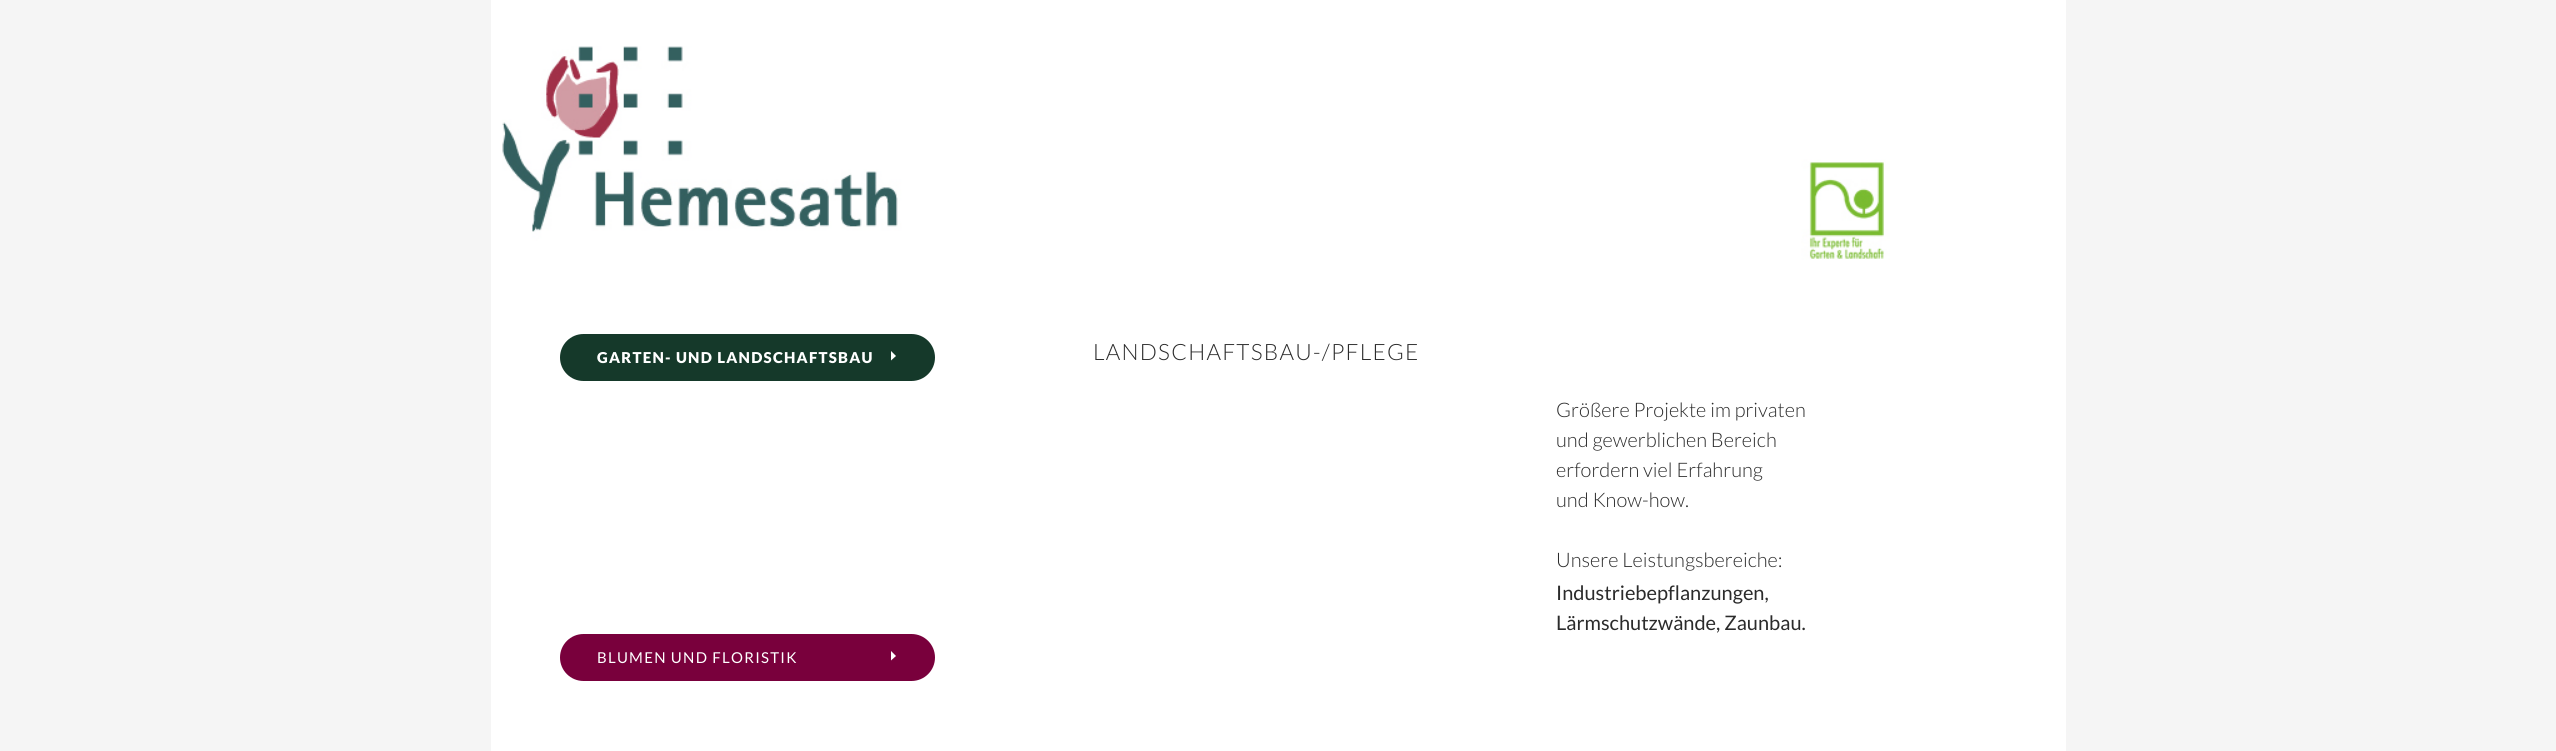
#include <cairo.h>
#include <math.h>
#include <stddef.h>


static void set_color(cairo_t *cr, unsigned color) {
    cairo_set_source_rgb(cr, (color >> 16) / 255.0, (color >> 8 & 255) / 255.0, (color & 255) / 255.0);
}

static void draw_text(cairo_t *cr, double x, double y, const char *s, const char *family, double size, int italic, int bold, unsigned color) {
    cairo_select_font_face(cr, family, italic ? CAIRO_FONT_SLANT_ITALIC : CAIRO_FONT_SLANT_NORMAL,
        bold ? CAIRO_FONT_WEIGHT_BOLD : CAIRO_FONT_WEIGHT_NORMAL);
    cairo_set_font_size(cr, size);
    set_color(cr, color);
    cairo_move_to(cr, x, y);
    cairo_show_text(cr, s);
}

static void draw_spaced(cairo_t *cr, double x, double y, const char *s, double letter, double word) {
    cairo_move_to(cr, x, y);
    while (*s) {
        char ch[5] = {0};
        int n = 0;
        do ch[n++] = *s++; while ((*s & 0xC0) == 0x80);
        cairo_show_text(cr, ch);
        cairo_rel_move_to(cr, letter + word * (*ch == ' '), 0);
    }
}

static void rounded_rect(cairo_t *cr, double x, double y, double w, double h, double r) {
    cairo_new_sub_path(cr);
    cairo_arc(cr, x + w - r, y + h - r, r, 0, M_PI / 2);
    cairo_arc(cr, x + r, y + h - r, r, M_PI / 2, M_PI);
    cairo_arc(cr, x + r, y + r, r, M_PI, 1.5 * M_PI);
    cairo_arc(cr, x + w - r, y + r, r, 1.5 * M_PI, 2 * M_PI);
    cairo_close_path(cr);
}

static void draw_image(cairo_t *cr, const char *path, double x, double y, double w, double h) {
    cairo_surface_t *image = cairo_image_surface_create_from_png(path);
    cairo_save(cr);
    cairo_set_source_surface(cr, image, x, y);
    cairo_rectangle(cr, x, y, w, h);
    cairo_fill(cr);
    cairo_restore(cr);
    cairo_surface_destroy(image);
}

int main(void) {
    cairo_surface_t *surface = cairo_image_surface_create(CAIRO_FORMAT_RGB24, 2556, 751);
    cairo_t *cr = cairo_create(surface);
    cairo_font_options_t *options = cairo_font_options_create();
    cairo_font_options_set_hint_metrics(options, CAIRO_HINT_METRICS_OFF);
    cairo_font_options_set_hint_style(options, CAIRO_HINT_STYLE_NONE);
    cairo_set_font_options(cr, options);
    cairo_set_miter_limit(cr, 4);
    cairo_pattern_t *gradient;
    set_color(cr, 0xF5F5F5);
    cairo_paint(cr);
    gradient = cairo_pattern_create_linear(1279, 0, 1279, 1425);
    cairo_pattern_add_color_stop_rgba(gradient, 0, 1, 1, 1, 1);
    cairo_pattern_add_color_stop_rgba(gradient, 0.6, 1, 1, 1, 1);
    cairo_pattern_add_color_stop_rgba(gradient, 1, 0.545, 0.576, 0.467, 1);
    cairo_set_source(cr, gradient);
    cairo_pattern_destroy(gradient);
    cairo_rectangle(cr, 491, 0, 1575, 751);
    cairo_fill(cr);
    draw_image(cr, "assets/img1.png", 502, 46, 1388, 214);
    set_color(cr, 0x15392A);
    rounded_rect(cr, 560, 334, 375, 47, 23.5);
    cairo_fill(cr);
    cairo_select_font_face(cr, "Lato Black", CAIRO_FONT_SLANT_NORMAL, CAIRO_FONT_WEIGHT_NORMAL);
    cairo_set_font_size(cr, 15);
    set_color(cr, 0xFFFFFF);
    draw_spaced(cr, 597, 363, "GARTEN- UND LANDSCHAFTSBAU", 1.25, 0);
    cairo_new_path(cr);
    cairo_move_to(cr, 891, 360.5);
    cairo_line_to(cr, 896, 356);
    cairo_line_to(cr, 891, 351);
    cairo_close_path(cr);
    cairo_fill(cr);
    set_color(cr, 0x79003C);
    rounded_rect(cr, 560, 634, 375, 47, 23.5);
    cairo_fill(cr);
    cairo_select_font_face(cr, "Lato", CAIRO_FONT_SLANT_NORMAL, CAIRO_FONT_WEIGHT_NORMAL);
    set_color(cr, 0xFFFFFF);
    draw_spaced(cr, 597, 663, "BLUMEN UND FLORISTIK", 1.25, 0);
    cairo_new_path(cr);
    cairo_move_to(cr, 891, 660.5);
    cairo_line_to(cr, 896, 656);
    cairo_line_to(cr, 891, 651);
    cairo_close_path(cr);
    cairo_fill(cr);
    cairo_select_font_face(cr, "Lato Light", CAIRO_FONT_SLANT_NORMAL, CAIRO_FONT_WEIGHT_NORMAL);
    cairo_set_font_size(cr, 22.5);
    set_color(cr, 0x2B2B2B);
    draw_spaced(cr, 1093, 360, "LANDSCHAFTSBAU-/PFLEGE", 1.25, 0);
    draw_text(cr, 1556, 417, "Größere Projekte im privaten", "Lato Light", 20, 0, 0, 0x2B2B2B);
    draw_text(cr, 1556, 447, "und gewerblichen Bereich", "Lato Light", 20, 0, 0, 0x2B2B2B);
    draw_text(cr, 1556, 477, "erfordern viel Erfahrung", "Lato Light", 20, 0, 0, 0x2B2B2B);
    draw_text(cr, 1556, 507, "und Know-how.", "Lato Light", 20, 0, 0, 0x2B2B2B);
    draw_text(cr, 1556, 567, "Unsere Leistungsbereiche:", "Lato Light", 20, 0, 0, 0x2B2B2B);
    draw_text(cr, 1556, 600, "Industriebepflanzungen,", "Lato", 20, 0, 0, 0x2B2B2B);
    draw_text(cr, 1556, 630, "Lärmschutzwände, Zaunbau.", "Lato", 20, 0, 0, 0x2B2B2B);
    cairo_surface_write_to_png(surface, "output.png");
    cairo_font_options_destroy(options);
    cairo_destroy(cr);
    cairo_surface_destroy(surface);
    return 0;
}
